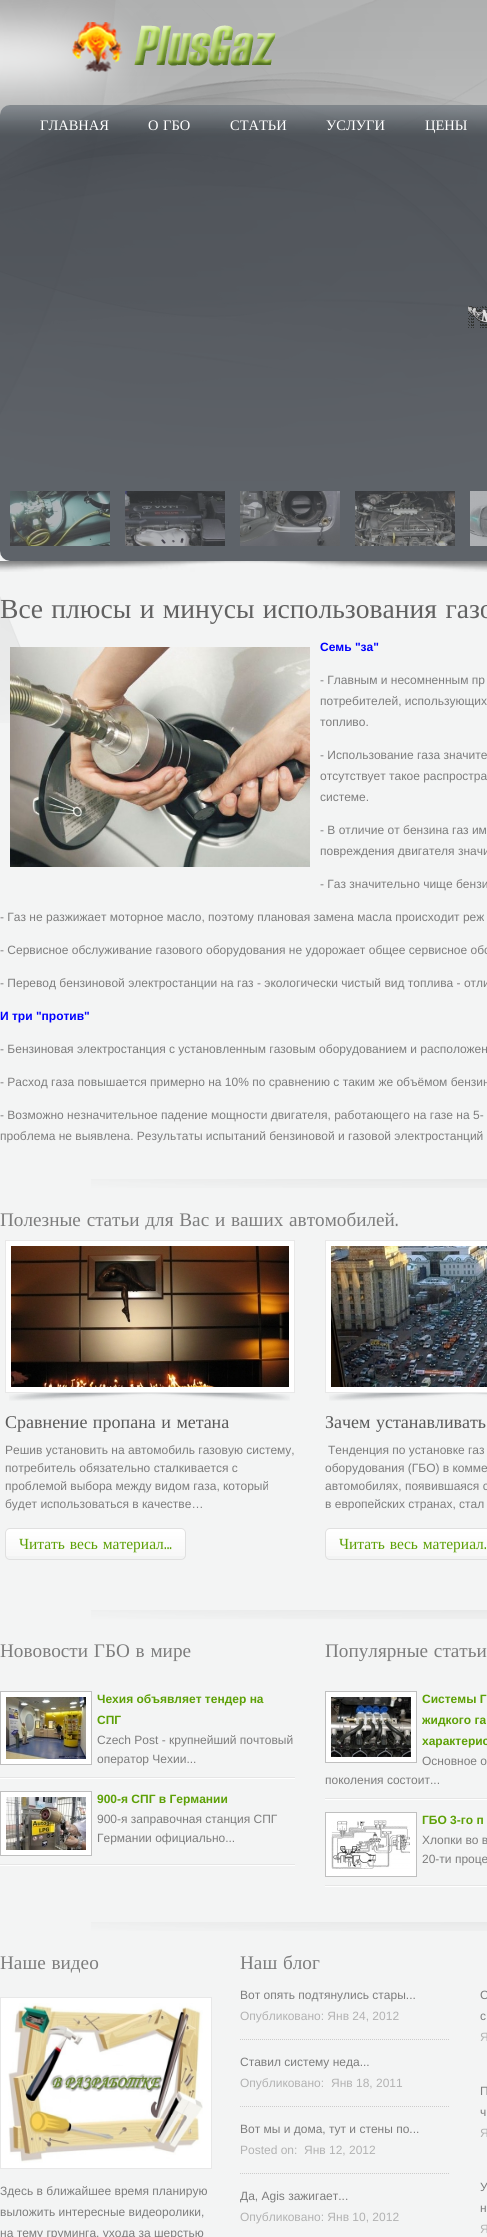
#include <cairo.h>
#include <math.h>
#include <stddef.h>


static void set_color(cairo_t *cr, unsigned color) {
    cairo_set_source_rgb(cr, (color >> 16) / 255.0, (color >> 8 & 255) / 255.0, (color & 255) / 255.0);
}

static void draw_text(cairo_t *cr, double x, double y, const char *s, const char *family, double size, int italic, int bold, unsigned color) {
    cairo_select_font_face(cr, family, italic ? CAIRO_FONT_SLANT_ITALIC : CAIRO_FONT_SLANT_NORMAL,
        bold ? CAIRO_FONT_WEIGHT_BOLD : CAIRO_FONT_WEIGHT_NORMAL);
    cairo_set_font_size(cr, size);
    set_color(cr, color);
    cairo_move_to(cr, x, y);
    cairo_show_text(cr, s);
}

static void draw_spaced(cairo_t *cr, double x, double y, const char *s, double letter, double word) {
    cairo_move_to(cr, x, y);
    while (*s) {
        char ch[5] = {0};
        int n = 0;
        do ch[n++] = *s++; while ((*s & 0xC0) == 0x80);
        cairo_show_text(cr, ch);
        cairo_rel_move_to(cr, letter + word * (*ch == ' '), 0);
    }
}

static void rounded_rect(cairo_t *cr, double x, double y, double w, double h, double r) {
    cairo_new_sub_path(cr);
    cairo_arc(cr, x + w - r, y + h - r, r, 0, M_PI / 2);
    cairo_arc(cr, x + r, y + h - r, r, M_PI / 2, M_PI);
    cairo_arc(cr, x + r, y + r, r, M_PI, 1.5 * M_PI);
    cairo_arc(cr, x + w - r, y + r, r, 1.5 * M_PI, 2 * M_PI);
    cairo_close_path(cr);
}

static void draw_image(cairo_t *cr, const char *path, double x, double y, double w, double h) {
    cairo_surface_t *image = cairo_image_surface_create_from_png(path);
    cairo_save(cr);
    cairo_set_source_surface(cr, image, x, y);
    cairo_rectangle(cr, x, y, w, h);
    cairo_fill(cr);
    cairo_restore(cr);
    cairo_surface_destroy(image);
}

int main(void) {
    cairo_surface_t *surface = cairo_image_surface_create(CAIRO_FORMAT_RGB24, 487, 2237);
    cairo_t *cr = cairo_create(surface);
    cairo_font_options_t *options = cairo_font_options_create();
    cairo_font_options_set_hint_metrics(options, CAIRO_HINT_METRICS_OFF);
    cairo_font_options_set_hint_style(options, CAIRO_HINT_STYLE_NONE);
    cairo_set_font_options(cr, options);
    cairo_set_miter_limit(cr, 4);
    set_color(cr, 0xF3F4F4);
    cairo_paint(cr);
    draw_image(cr, "assets/img1.png", 0, 0, 487, 723);
    draw_image(cr, "assets/img2.png", 71, 22, 205, 50);
    draw_image(cr, "assets/img3.png", 0, 105, 487, 40);
    draw_text(cr, 40, 130, "ГЛАВНАЯ", "Liberation Serif", 14.5, 0, 0, 0xFFFFFF);
    draw_spaced(cr, 148, 130, "О ГБО", 0, 1);
    draw_text(cr, 230, 130, "СТАТЬИ", "Liberation Serif", 14.5, 0, 0, 0xFFFFFF);
    draw_text(cr, 326, 130, "УСЛУГИ", "Liberation Serif", 14.5, 0, 0, 0xFFFFFF);
    draw_text(cr, 425, 130, "ЦЕНЫ", "Liberation Serif", 14.5, 0, 0, 0xFFFFFF);
    draw_image(cr, "assets/img4.png", 0, 561, 487, 11);
    draw_image(cr, "assets/img5.png", 0, 145, 487, 416);
    draw_image(cr, "assets/img6.png", 468, 306, 19, 22);
    draw_image(cr, "assets/img7.png", 10, 491, 100, 55);
    draw_image(cr, "assets/img8.png", 125, 491, 100, 55);
    draw_image(cr, "assets/img9.png", 240, 491, 100, 55);
    draw_image(cr, "assets/img10.png", 355, 491, 100, 55);
    draw_image(cr, "assets/img11.png", 470, 491, 17, 55);
    cairo_set_font_size(cr, 27.6);
    set_color(cr, 0x626262);
    draw_spaced(cr, 0, 618, "Все плюсы и минусы использования газо", 0, 1.5);
    draw_image(cr, "assets/img12.png", 10, 647, 300, 220);
    draw_text(cr, 320, 651, "Семь \"за\"", "Liberation Sans", 12, 0, 1, 0x0000FF);
    draw_text(cr, 320, 684, "- Главным и несомненным пр", "Liberation Sans", 12, 0, 0, 0x7D7D7D);
    draw_text(cr, 320, 705, "потребителей, использующих", "Liberation Sans", 12, 0, 0, 0x7D7D7D);
    draw_text(cr, 320, 726, "топливо.", "Liberation Sans", 12, 0, 0, 0x7D7D7D);
    draw_text(cr, 320, 759, "- Использование газа значите", "Liberation Sans", 12, 0, 0, 0x7D7D7D);
    draw_text(cr, 320, 780, "отсутствует такое распростра", "Liberation Sans", 12, 0, 0, 0x7D7D7D);
    draw_text(cr, 320, 801, "системе.", "Liberation Sans", 12, 0, 0, 0x7D7D7D);
    draw_text(cr, 320, 834, "- В отличие от бензина газ им", "Liberation Sans", 12, 0, 0, 0x7D7D7D);
    draw_text(cr, 320, 855, "повреждения двигателя значи", "Liberation Sans", 12, 0, 0, 0x7D7D7D);
    draw_text(cr, 320, 888, "- Газ значительно чище бензи", "Liberation Sans", 12, 0, 0, 0x7D7D7D);
    draw_text(cr, 0, 921, "- Газ не разжижает моторное масло, поэтому плановая замена масла происходит реж", "Liberation Sans", 12, 0, 0, 0x7D7D7D);
    draw_text(cr, 0, 954, "- Сервисное обслуживание газового оборудования не удорожает общее сервисное обс", "Liberation Sans", 12, 0, 0, 0x7D7D7D);
    draw_text(cr, 0, 987, "- Перевод бензиновой электростанции на газ - экологически чистый вид топлива - отли", "Liberation Sans", 12, 0, 0, 0x7D7D7D);
    draw_text(cr, 0, 1020, "И три \"против\"", "Liberation Sans", 12, 0, 1, 0x0000FF);
    draw_text(cr, 0, 1053, "- Бензиновая электростанция с установленным газовым оборудованием и расположен", "Liberation Sans", 12, 0, 0, 0x7D7D7D);
    draw_text(cr, 0, 1086, "- Расход газа повышается примерно на 10% по сравнению с таким же объёмом бензин", "Liberation Sans", 12, 0, 0, 0x7D7D7D);
    draw_text(cr, 0, 1119, "- Возможно незначительное падение мощности двигателя, работающего на газе на 5-", "Liberation Sans", 12, 0, 0, 0x7D7D7D);
    draw_text(cr, 0, 1140, "проблема не выявлена. Результаты испытаний бензиновой и газовой электростанций", "Liberation Sans", 12, 0, 0, 0x7D7D7D);
    draw_image(cr, "assets/img13.png", 91, 1179, 396, 9);
    cairo_select_font_face(cr, "Liberation Serif", CAIRO_FONT_SLANT_NORMAL, CAIRO_FONT_WEIGHT_NORMAL);
    cairo_set_font_size(cr, 19.2);
    draw_spaced(cr, 0, 1226, "Полезные статьи для Вас и ваших автомобилей", 0, 1);
    draw_text(cr, 395, 1226, ".", "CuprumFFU", 19.2, 0, 0, 0x7D7D7D);
    draw_image(cr, "assets/img14.png", 9, 1393, 281, 8);
    set_color(cr, 0xFFFFFF);
    cairo_rectangle(cr, 5.5, 1240.5, 289, 152);
    cairo_fill_preserve(cr);
    set_color(cr, 0xE8E8E8);
    cairo_set_line_width(cr, 1);
    cairo_stroke(cr);
    draw_image(cr, "assets/img15.png", 11, 1246, 278, 141);
    cairo_select_font_face(cr, "Liberation Serif", CAIRO_FONT_SLANT_NORMAL, CAIRO_FONT_WEIGHT_NORMAL);
    cairo_set_font_size(cr, 18);
    set_color(cr, 0x5A5A5A);
    draw_spaced(cr, 5, 1428, "Сравнение пропана и метана", 0, 1);
    draw_text(cr, 5, 1454, "Решив установить на автомобиль газовую систему,", "Liberation Sans", 12, 0, 0, 0x7D7D7D);
    draw_text(cr, 5, 1472, "потребитель обязательно сталкивается с", "Liberation Sans", 12, 0, 0, 0x7D7D7D);
    draw_text(cr, 5, 1490, "проблемой выбора между видом газа, который", "Liberation Sans", 12, 0, 0, 0x7D7D7D);
    draw_text(cr, 5, 1508, "будет использоваться в качестве…", "Liberation Sans", 12, 0, 0, 0x7D7D7D);
    draw_image(cr, "assets/img16.png", 5, 1529, 181, 27);
    rounded_rect(cr, 5.5, 1528.5, 180, 31, 4.5);
    set_color(cr, 0xE0E0E0);
    cairo_stroke(cr);
    cairo_select_font_face(cr, "Liberation Serif", CAIRO_FONT_SLANT_NORMAL, CAIRO_FONT_WEIGHT_NORMAL);
    cairo_set_font_size(cr, 15.5);
    set_color(cr, 0x5DA006);
    draw_spaced(cr, 19, 1549, "Читать весь материал", 0, 1);
    draw_text(cr, 164, 1549, "...", "CuprumFFU", 15.5, 0, 0, 0x5DA006);
    draw_image(cr, "assets/img17.png", 329, 1393, 158, 8);
    set_color(cr, 0xFFFFFF);
    cairo_rectangle(cr, 325.5, 1240.5, 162, 152);
    cairo_fill_preserve(cr);
    set_color(cr, 0xE8E8E8);
    cairo_stroke(cr);
    draw_image(cr, "assets/img18.png", 331, 1246, 156, 141);
    cairo_select_font_face(cr, "Liberation Serif", CAIRO_FONT_SLANT_NORMAL, CAIRO_FONT_WEIGHT_NORMAL);
    cairo_set_font_size(cr, 18);
    set_color(cr, 0x5A5A5A);
    draw_spaced(cr, 325, 1428, "Зачем устанавливать", 0, 1);
    draw_text(cr, 328, 1454, "Тенденция по установке газ", "Liberation Sans", 12, 0, 0, 0x7D7D7D);
    draw_text(cr, 325, 1472, "оборудования (ГБО) в комме", "Liberation Sans", 12, 0, 0, 0x7D7D7D);
    draw_text(cr, 325, 1490, "автомобилях, появившаяся с", "Liberation Sans", 12, 0, 0, 0x7D7D7D);
    draw_text(cr, 325, 1508, "в европейских странах, стал", "Liberation Sans", 12, 0, 0, 0x7D7D7D);
    draw_image(cr, "assets/img19.png", 325, 1529, 162, 27);
    rounded_rect(cr, 325.5, 1528.5, 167, 31, 4.5);
    set_color(cr, 0xE0E0E0);
    cairo_stroke(cr);
    cairo_select_font_face(cr, "Liberation Serif", CAIRO_FONT_SLANT_NORMAL, CAIRO_FONT_WEIGHT_NORMAL);
    cairo_set_font_size(cr, 15.5);
    set_color(cr, 0x5DA006);
    draw_spaced(cr, 339, 1549, "Читать весь материал", 0, 1);
    draw_text(cr, 484, 1549, ".", "CuprumFFU", 15.5, 0, 0, 0x5DA006);
    draw_image(cr, "assets/img13.png", 91, 1610, 396, 9);
    cairo_select_font_face(cr, "Liberation Serif", CAIRO_FONT_SLANT_NORMAL, CAIRO_FONT_WEIGHT_NORMAL);
    cairo_set_font_size(cr, 19.2);
    set_color(cr, 0x7D7D7D);
    draw_spaced(cr, 0, 1657, "Нововости ГБО в мире", 0, 1);
    draw_image(cr, "assets/img20.png", 0, 1777, 295, 2);
    set_color(cr, 0xFFFFFF);
    cairo_rectangle(cr, 0.5, 1691.5, 91, 73);
    cairo_fill_preserve(cr);
    set_color(cr, 0xBFBFBF);
    cairo_stroke(cr);
    draw_image(cr, "assets/img21.png", 6, 1697, 80, 62);
    draw_text(cr, 97, 1703, "Чехия объявляет тендер на", "Liberation Sans", 12, 0, 1, 0x5DA006);
    draw_text(cr, 97, 1724, "СПГ", "Liberation Sans", 12, 0, 1, 0x5DA006);
    draw_text(cr, 97, 1744, "Czech Post - крупнейший почтовый", "Liberation Sans", 12, 0, 0, 0x7D7D7D);
    draw_text(cr, 97, 1763, "оператор Чехии...", "Liberation Sans", 12, 0, 0, 0x7D7D7D);
    draw_image(cr, "assets/img20.png", 0, 1864, 295, 2);
    set_color(cr, 0xFFFFFF);
    cairo_rectangle(cr, 0.5, 1791.5, 91, 64);
    cairo_fill_preserve(cr);
    set_color(cr, 0xBFBFBF);
    cairo_stroke(cr);
    draw_image(cr, "assets/img22.png", 6, 1797, 80, 53);
    draw_text(cr, 97, 1803, "900-я СПГ в Германии", "Liberation Sans", 12, 0, 1, 0x5DA006);
    draw_text(cr, 97, 1823, "900-я заправочная станция СПГ", "Liberation Sans", 12, 0, 0, 0x7D7D7D);
    draw_text(cr, 97, 1842, "Германии официально...", "Liberation Sans", 12, 0, 0, 0x7D7D7D);
    cairo_select_font_face(cr, "Liberation Serif", CAIRO_FONT_SLANT_NORMAL, CAIRO_FONT_WEIGHT_NORMAL);
    cairo_set_font_size(cr, 19.2);
    draw_spaced(cr, 325, 1657, "Популярные статьи", 0, 1);
    draw_image(cr, "assets/img23.png", 325, 1798, 162, 2);
    set_color(cr, 0xFFFFFF);
    cairo_rectangle(cr, 325.5, 1691.5, 91, 71);
    cairo_fill_preserve(cr);
    set_color(cr, 0xBFBFBF);
    cairo_stroke(cr);
    draw_image(cr, "assets/img24.png", 331, 1697, 80, 60);
    draw_text(cr, 422, 1703, "Системы Г", "Liberation Sans", 12, 0, 1, 0x5DA006);
    draw_text(cr, 422, 1724, "жидкого га", "Liberation Sans", 12, 0, 1, 0x5DA006);
    draw_text(cr, 422, 1745, "характерис", "Liberation Sans", 12, 0, 1, 0x5DA006);
    draw_text(cr, 422, 1765, "Основное о", "Liberation Sans", 12, 0, 0, 0x7D7D7D);
    draw_text(cr, 325, 1784, "поколения состоит...", "Liberation Sans", 12, 0, 0, 0x7D7D7D);
    draw_image(cr, "assets/img23.png", 325, 1885, 162, 2);
    set_color(cr, 0xFFFFFF);
    cairo_rectangle(cr, 325.5, 1812.5, 91, 64);
    cairo_fill_preserve(cr);
    set_color(cr, 0xBFBFBF);
    cairo_stroke(cr);
    draw_image(cr, "assets/img25.png", 331, 1820, 79, 49);
    draw_text(cr, 422, 1824, "ГБО 3-го п", "Liberation Sans", 12, 0, 1, 0x5DA006);
    draw_text(cr, 422, 1844, "Хлопки во в", "Liberation Sans", 12, 0, 0, 0x7D7D7D);
    draw_text(cr, 422, 1863, "20-ти проце", "Liberation Sans", 12, 0, 0, 0x7D7D7D);
    draw_image(cr, "assets/img13.png", 91, 1922, 396, 9);
    cairo_select_font_face(cr, "Liberation Serif", CAIRO_FONT_SLANT_NORMAL, CAIRO_FONT_WEIGHT_NORMAL);
    cairo_set_font_size(cr, 19.2);
    draw_spaced(cr, 0, 1969, "Наше видео", 0, 1);
    set_color(cr, 0xFFFFFF);
    cairo_rectangle(cr, 0.5, 1997.5, 211, 171);
    cairo_fill_preserve(cr);
    set_color(cr, 0xE8E8E8);
    cairo_stroke(cr);
    draw_image(cr, "assets/img26.png", 8, 2003, 195, 160);
    draw_text(cr, 0, 2195, "Здесь в ближайшее время планирую", "Liberation Sans", 12, 0, 0, 0x7D7D7D);
    draw_text(cr, 0, 2216, "выложить интересные видеоролики,", "Liberation Sans", 12, 0, 0, 0x7D7D7D);
    draw_text(cr, 0, 2237, "на тему груминга, ухода за шерстью", "Liberation Sans", 12, 0, 0, 0x7D7D7D);
    cairo_select_font_face(cr, "Liberation Serif", CAIRO_FONT_SLANT_NORMAL, CAIRO_FONT_WEIGHT_NORMAL);
    cairo_set_font_size(cr, 19.2);
    draw_spaced(cr, 240, 1969, "Наш блог", 0, 1);
    cairo_new_path(cr);
    cairo_move_to(cr, 240, 2039.5);
    cairo_line_to(cr, 450, 2039.5);
    set_color(cr, 0xCCCCCC);
    cairo_set_dash(cr, (double[]){1, 1}, 2, 0);
    cairo_stroke(cr);
    draw_text(cr, 240, 1999, "Вот опять подтянулись стары...", "Liberation Sans", 12, 0, 0, 0x7D7D7D);
    draw_text(cr, 240, 2020, "Опубликовано: Янв 24, 2012", "Liberation Sans", 12, 0, 0, 0xB2B2B2);
    cairo_new_path(cr);
    cairo_move_to(cr, 240, 2106.5);
    cairo_line_to(cr, 450, 2106.5);
    set_color(cr, 0xCCCCCC);
    cairo_stroke(cr);
    draw_text(cr, 240, 2066, "Ставил систему неда...", "Liberation Sans", 12, 0, 0, 0x7D7D7D);
    draw_text(cr, 240, 2087, "Опубликовано:", "Liberation Sans", 12, 0, 0, 0xB2B2B2);
    draw_text(cr, 331, 2087, "Янв 18, 2011", "Liberation Sans", 12, 0, 0, 0xB2B2B2);
    cairo_new_path(cr);
    cairo_move_to(cr, 240, 2173.5);
    cairo_line_to(cr, 450, 2173.5);
    set_color(cr, 0xCCCCCC);
    cairo_stroke(cr);
    draw_text(cr, 240, 2133, "Вот мы и дома, тут и стены по...", "Liberation Sans", 12, 0, 0, 0x7D7D7D);
    draw_text(cr, 240, 2154, "Posted on:", "Liberation Sans", 12, 0, 0, 0xB2B2B2);
    draw_text(cr, 304, 2154, "Янв 12, 2012", "Liberation Sans", 12, 0, 0, 0xB2B2B2);
    draw_text(cr, 240, 2200, "Да, Agis зажигает...", "Liberation Sans", 12, 0, 0, 0x7D7D7D);
    draw_text(cr, 240, 2221, "Опубликовано: Янв 10, 2012", "Liberation Sans", 12, 0, 0, 0xB2B2B2);
    draw_text(cr, 480, 1999, "С", "Liberation Sans", 12, 0, 0, 0x7D7D7D);
    draw_text(cr, 480, 2020, "с", "Liberation Sans", 12, 0, 0, 0x7D7D7D);
    draw_text(cr, 480, 2041, "Я", "Liberation Sans", 12, 0, 0, 0xB2B2B2);
    draw_text(cr, 480, 2095, "П", "Liberation Sans", 12, 0, 0, 0x7D7D7D);
    draw_text(cr, 480, 2116, "ч", "Liberation Sans", 12, 0, 0, 0x7D7D7D);
    draw_text(cr, 480, 2137, "Я", "Liberation Sans", 12, 0, 0, 0xB2B2B2);
    draw_text(cr, 480, 2191, "У", "Liberation Sans", 12, 0, 0, 0x7D7D7D);
    draw_text(cr, 480, 2212, "н", "Liberation Sans", 12, 0, 0, 0x7D7D7D);
    draw_text(cr, 480, 2233, "Я", "Liberation Sans", 12, 0, 0, 0xB2B2B2);
    cairo_surface_write_to_png(surface, "output.png");
    cairo_font_options_destroy(options);
    cairo_destroy(cr);
    cairo_surface_destroy(surface);
    return 0;
}
